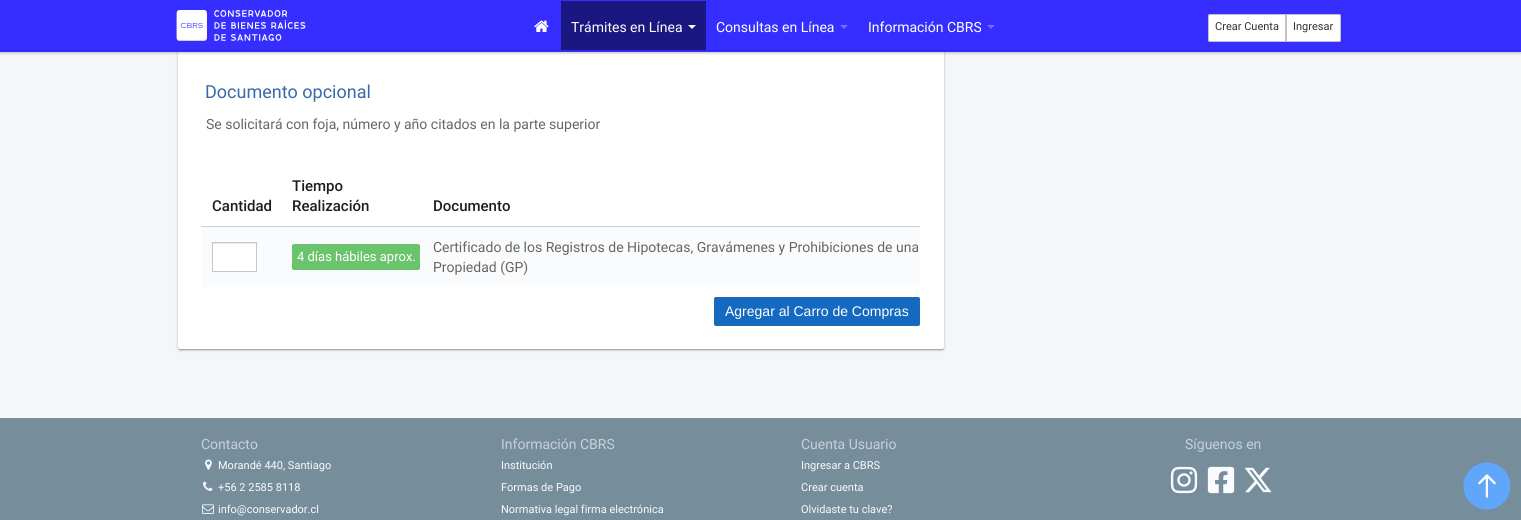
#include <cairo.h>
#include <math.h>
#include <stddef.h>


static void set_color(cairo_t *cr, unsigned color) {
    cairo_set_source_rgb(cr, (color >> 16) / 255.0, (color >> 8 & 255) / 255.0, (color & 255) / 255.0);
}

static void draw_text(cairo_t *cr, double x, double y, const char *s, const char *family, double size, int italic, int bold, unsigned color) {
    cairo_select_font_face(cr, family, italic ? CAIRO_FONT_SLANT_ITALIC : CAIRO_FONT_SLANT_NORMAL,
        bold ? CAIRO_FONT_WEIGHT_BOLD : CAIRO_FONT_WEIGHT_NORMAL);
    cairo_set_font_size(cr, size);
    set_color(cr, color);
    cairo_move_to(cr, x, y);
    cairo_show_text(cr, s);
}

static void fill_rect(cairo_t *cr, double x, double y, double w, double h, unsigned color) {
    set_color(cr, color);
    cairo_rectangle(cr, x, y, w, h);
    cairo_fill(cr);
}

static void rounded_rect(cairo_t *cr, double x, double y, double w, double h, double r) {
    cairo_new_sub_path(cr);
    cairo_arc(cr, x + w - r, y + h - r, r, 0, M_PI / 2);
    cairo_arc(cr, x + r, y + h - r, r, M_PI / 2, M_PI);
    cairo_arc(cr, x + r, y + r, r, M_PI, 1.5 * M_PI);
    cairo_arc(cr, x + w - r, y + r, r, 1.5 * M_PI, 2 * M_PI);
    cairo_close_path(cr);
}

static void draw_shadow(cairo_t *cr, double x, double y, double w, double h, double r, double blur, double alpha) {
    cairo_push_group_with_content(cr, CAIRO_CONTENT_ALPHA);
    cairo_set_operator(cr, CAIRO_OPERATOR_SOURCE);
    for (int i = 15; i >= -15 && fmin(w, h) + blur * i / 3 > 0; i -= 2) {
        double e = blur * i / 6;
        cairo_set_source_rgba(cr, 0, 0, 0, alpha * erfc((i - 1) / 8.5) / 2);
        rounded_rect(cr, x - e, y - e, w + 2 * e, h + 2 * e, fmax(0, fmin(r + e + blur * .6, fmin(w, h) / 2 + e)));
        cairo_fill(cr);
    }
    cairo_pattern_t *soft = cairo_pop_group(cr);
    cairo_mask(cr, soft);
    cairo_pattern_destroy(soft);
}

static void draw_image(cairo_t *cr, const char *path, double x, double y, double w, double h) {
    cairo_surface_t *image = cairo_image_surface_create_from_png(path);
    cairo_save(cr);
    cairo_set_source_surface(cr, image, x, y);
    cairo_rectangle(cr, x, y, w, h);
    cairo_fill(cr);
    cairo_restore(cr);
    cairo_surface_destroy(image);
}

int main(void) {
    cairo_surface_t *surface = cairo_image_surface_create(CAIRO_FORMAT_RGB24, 1521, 520);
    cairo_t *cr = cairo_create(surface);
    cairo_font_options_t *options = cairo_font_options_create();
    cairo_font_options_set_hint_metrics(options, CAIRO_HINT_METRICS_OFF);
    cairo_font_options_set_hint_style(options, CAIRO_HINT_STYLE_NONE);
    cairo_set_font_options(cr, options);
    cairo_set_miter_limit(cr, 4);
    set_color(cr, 0xF4F6F8);
    cairo_paint(cr);
    set_color(cr, 0x000000);
    draw_shadow(cr, 179, -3, 764, 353, 1, 0.5, 0.12);
    draw_shadow(cr, 178, -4, 766, 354, 2, 0.5, 0.14);
    draw_shadow(cr, 178, -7, 766, 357, 2, 1.5, 0.2);
    set_color(cr, 0xFFFFFF);
    rounded_rect(cr, 178, -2, 766, 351, 2);
    cairo_fill(cr);
    set_color(cr, 0x000000);
    draw_shadow(cr, 0, 1, 1521, 52, 0, 1.5, 0.25);
    fill_rect(cr, 0, 0, 1521, 52, 0x362EFF);
    fill_rect(cr, 1, 50, 1519, 1, 0x3129E6);
    draw_image(cr, "assets/img1.png", 176, 10, 130, 31);
    draw_image(cr, "assets/img2.png", 534, 20, 15, 12);
    fill_rect(cr, 561, 1, 145, 49, 0x1A1780);
    draw_text(cr, 571, 32, "Trámites en Línea", "Roboto", 14, 0, 0, 0xFFFFFF);
    cairo_new_path(cr);
    cairo_move_to(cr, 688, 25);
    cairo_line_to(cr, 696, 25);
    cairo_line_to(cr, 692, 29);
    cairo_close_path(cr);
    cairo_fill(cr);
    draw_text(cr, 716, 32, "Consultas en Línea", "Roboto", 14, 0, 0, 0xFFFFFF);
    set_color(cr, 0x726DFF);
    cairo_new_path(cr);
    cairo_move_to(cr, 840, 25);
    cairo_line_to(cr, 848, 25);
    cairo_line_to(cr, 844, 29);
    cairo_close_path(cr);
    cairo_fill(cr);
    draw_text(cr, 868, 32, "Información CBRS", "Roboto", 14, 0, 0, 0xFFFFFF);
    set_color(cr, 0x726DFF);
    cairo_new_path(cr);
    cairo_move_to(cr, 987, 25);
    cairo_line_to(cr, 995, 25);
    cairo_line_to(cr, 991, 29);
    cairo_close_path(cr);
    cairo_fill(cr);
    set_color(cr, 0xFFFFFF);
    cairo_new_path(cr);
    cairo_move_to(cr, 1210, 14);
    cairo_line_to(cr, 1286, 14);
    cairo_line_to(cr, 1286, 42);
    cairo_line_to(cr, 1210, 42);
    cairo_curve_to(cr, 1209, 42, 1208, 41, 1208, 40);
    cairo_line_to(cr, 1208, 16);
    cairo_curve_to(cr, 1208, 15, 1209, 14, 1210, 14);
    cairo_close_path(cr);
    cairo_fill(cr);
    cairo_new_path(cr);
    cairo_move_to(cr, 1210, 14.5);
    cairo_line_to(cr, 1285.5, 14.5);
    cairo_line_to(cr, 1285.5, 41.5);
    cairo_line_to(cr, 1210, 41.5);
    cairo_curve_to(cr, 1209, 41.5, 1208.5, 41, 1208.5, 40);
    cairo_line_to(cr, 1208.5, 16);
    cairo_curve_to(cr, 1208.5, 15, 1209, 14.5, 1210, 14.5);
    cairo_close_path(cr);
    cairo_set_source_rgba(cr, 0.647, 0.627, 0.627, 0.66);
    cairo_set_line_width(cr, 1);
    cairo_stroke(cr);
    draw_text(cr, 1215, 30, "Crear Cuenta", "Roboto", 11, 0, 0, 0x333333);
    set_color(cr, 0xFFFFFF);
    cairo_new_path(cr);
    cairo_move_to(cr, 1286, 14);
    cairo_line_to(cr, 1339, 14);
    cairo_curve_to(cr, 1340, 14, 1341, 15, 1341, 16);
    cairo_line_to(cr, 1341, 40);
    cairo_curve_to(cr, 1341, 41, 1340, 42, 1339, 42);
    cairo_line_to(cr, 1286, 42);
    cairo_close_path(cr);
    cairo_fill(cr);
    cairo_new_path(cr);
    cairo_move_to(cr, 1286.5, 14.5);
    cairo_line_to(cr, 1339, 14.5);
    cairo_curve_to(cr, 1340, 14.5, 1340.5, 15, 1340.5, 16);
    cairo_line_to(cr, 1340.5, 40);
    cairo_curve_to(cr, 1340.5, 41, 1340, 41.5, 1339, 41.5);
    cairo_line_to(cr, 1286.5, 41.5);
    cairo_close_path(cr);
    cairo_set_source_rgba(cr, 0.647, 0.627, 0.627, 0.66);
    cairo_stroke(cr);
    draw_text(cr, 1293, 30, "Ingresar", "Roboto", 11, 0, 0, 0x333333);
    draw_text(cr, 205, 98, "Documento opcional", "Roboto", 18, 0, 0, 0x386AA7);
    draw_text(cr, 206, 129, "Se solicitará con foja, número y año citados en la parte superior", "Roboto", 14, 0, 0, 0x666666);
    draw_text(cr, 212, 211, "Cantidad", "Roboto Medium", 15, 0, 0, 0x1F1E1E);
    draw_text(cr, 292, 191, "Tiempo", "Roboto Medium", 15, 0, 0, 0x1F1E1E);
    draw_text(cr, 292, 211, "Realización", "Roboto Medium", 15, 0, 0, 0x1F1E1E);
    draw_text(cr, 433, 211, "Documento", "Roboto Medium", 15, 0, 0, 0x1F1E1E);
    fill_rect(cr, 202, 227, 718, 60, 0xFAFBFC);
    fill_rect(cr, 213, 244, 43, 27, 0xFFFFFF);
    fill_rect(cr, 213, 243, 43, 1, 0xECECEC);
    cairo_rectangle(cr, 212.5, 242.5, 44, 29);
    set_color(cr, 0xC0C7D0);
    cairo_stroke(cr);
    set_color(cr, 0x69C46C);
    rounded_rect(cr, 292, 244, 128, 26, 2);
    cairo_fill(cr);
    draw_text(cr, 297, 261, "4 días hábiles aprox.", "Roboto", 13, 0, 0, 0xFFFFFF);
    fill_rect(cr, 201, 226, 719, 1, 0xC4D0DC);
    draw_text(cr, 433, 252, "Certificado de los Registros de Hipotecas, Gravámenes y Prohibiciones de una", "Roboto", 14, 0, 0, 0x666666);
    draw_text(cr, 433, 272, "Propiedad (GP)", "Roboto", 14, 0, 0, 0x666666);
    set_color(cr, 0x136AC0);
    rounded_rect(cr, 714.5, 297.5, 205, 28, 1.5);
    cairo_fill_preserve(cr);
    set_color(cr, 0x226BAB);
    cairo_stroke(cr);
    draw_text(cr, 725, 316, "Agregar al Carro de Compras", "Liberation Sans", 14, 0, 0, 0xFFFFFF);
    fill_rect(cr, 0, 419, 1521, 101, 0x768D9C);
    fill_rect(cr, 0, 418, 1521, 1, 0x7295A7);
    draw_text(cr, 201, 449, "Contacto", "Roboto", 14, 0, 0, 0xC5D1DA);
    draw_image(cr, "assets/img3.png", 205, 459, 7, 11);
    draw_text(cr, 218, 469, "Morandé 440, Santiago", "Roboto", 11, 0, 0, 0xF9FBFF);
    draw_image(cr, "assets/img4.png", 203, 481, 10, 10);
    draw_text(cr, 218, 491, "+56 2 2585 8118", "Roboto", 11, 0, 0, 0xF9FBFF);
    draw_image(cr, "assets/img5.png", 202, 504, 12, 10);
    draw_text(cr, 218, 513, "info@conservador.cl", "Roboto", 11, 0, 0, 0xF9FBFF);
    draw_text(cr, 501, 449, "Información CBRS", "Roboto", 14, 0, 0, 0xC5D1DA);
    draw_text(cr, 501, 469, "Institución", "Roboto", 11, 0, 0, 0xF9FBFF);
    draw_text(cr, 501, 491, "Formas de Pago", "Roboto", 11, 0, 0, 0xF9FBFF);
    draw_text(cr, 501, 513, "Normativa legal firma electrónica", "Roboto", 11, 0, 0, 0xF9FBFF);
    draw_text(cr, 801, 449, "Cuenta Usuario", "Roboto", 14, 0, 0, 0xC5D1DA);
    draw_text(cr, 801, 469, "Ingresar a CBRS", "Roboto", 11, 0, 0, 0xF9FBFF);
    draw_text(cr, 801, 491, "Crear cuenta", "Roboto", 11, 0, 0, 0xF9FBFF);
    draw_text(cr, 801, 513, "Olvidaste tu clave?", "Roboto", 11, 0, 0, 0xF9FBFF);
    draw_text(cr, 1185, 449, "Síguenos en", "Roboto", 14, 0, 0, 0xC5D1DA);
    draw_image(cr, "assets/img6.png", 1170, 466, 28, 28);
    draw_image(cr, "assets/img7.png", 1207, 466, 28, 28);
    draw_image(cr, "assets/img8.png", 1244, 467, 28, 26);
    draw_image(cr, "assets/img9.png", 1463, 462, 48, 48);
    cairo_surface_write_to_png(surface, "output.png");
    cairo_font_options_destroy(options);
    cairo_destroy(cr);
    cairo_surface_destroy(surface);
    return 0;
}
